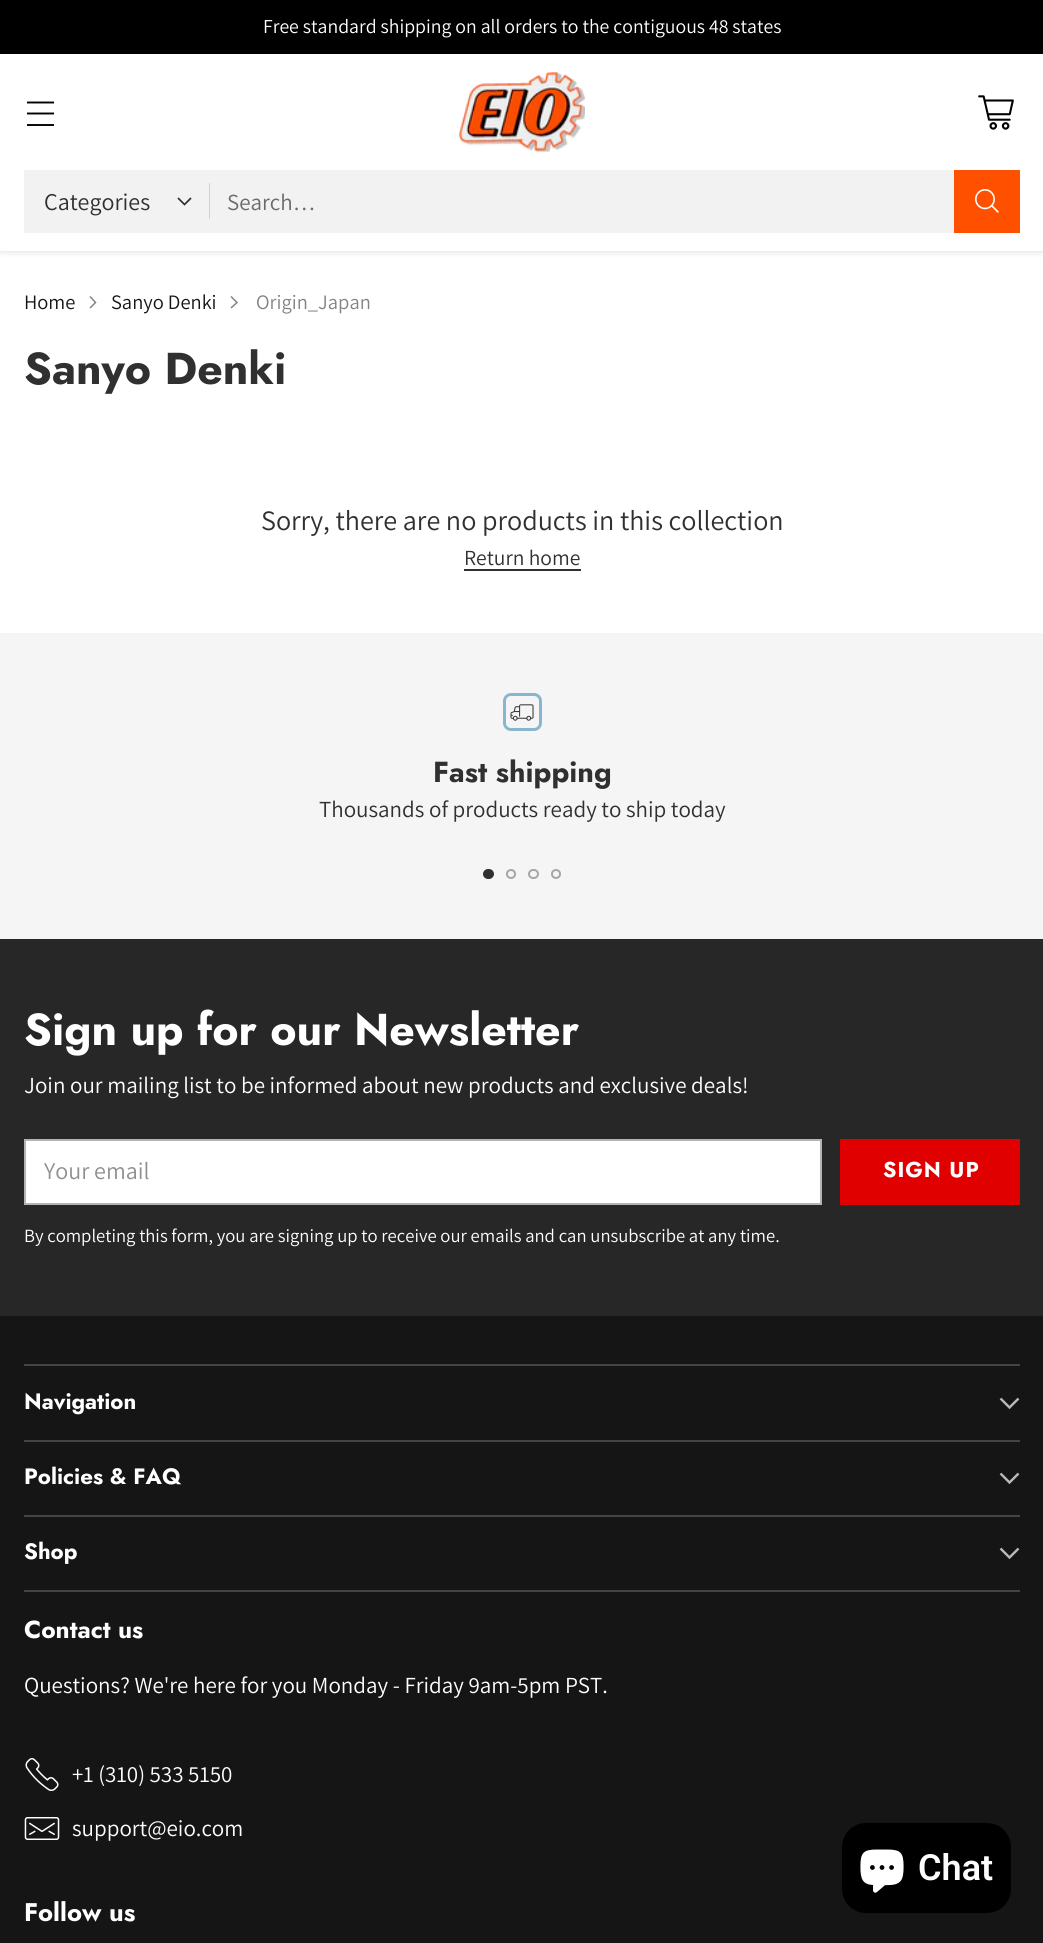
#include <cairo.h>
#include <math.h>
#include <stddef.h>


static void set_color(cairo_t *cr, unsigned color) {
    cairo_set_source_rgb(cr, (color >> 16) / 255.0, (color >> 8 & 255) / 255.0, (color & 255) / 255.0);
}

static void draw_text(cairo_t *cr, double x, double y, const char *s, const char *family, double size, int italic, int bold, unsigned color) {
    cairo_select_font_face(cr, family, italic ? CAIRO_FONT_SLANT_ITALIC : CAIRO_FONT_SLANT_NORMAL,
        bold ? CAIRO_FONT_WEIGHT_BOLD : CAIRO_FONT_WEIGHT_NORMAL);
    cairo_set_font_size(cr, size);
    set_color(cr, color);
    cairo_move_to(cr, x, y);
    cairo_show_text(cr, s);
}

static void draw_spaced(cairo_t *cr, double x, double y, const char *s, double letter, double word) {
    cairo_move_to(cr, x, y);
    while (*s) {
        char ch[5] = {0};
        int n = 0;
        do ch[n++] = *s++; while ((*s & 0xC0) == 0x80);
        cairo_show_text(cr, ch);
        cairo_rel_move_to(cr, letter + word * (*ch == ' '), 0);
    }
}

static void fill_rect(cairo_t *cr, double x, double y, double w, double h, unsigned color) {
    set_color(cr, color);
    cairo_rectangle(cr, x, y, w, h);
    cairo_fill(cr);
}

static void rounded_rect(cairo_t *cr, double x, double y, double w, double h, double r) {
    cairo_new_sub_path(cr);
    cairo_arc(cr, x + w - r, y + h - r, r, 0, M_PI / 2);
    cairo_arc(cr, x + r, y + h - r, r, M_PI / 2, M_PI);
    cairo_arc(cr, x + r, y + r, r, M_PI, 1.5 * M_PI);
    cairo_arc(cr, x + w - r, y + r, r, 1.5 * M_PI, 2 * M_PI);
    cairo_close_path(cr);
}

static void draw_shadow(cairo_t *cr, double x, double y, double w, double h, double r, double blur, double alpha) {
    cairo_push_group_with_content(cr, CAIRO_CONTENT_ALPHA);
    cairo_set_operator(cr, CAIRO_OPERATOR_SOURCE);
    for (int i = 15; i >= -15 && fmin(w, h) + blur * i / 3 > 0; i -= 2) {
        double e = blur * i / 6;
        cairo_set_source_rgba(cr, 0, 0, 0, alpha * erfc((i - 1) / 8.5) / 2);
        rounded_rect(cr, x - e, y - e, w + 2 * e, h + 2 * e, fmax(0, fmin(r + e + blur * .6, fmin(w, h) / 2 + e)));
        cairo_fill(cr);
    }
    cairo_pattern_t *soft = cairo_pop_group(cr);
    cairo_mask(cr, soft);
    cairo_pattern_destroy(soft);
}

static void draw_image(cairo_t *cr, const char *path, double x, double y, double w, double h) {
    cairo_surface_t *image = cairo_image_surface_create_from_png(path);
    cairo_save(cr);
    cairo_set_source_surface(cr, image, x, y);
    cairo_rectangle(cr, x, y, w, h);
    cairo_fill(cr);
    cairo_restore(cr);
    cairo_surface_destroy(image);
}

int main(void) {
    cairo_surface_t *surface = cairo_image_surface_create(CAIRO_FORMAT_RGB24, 1043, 1943);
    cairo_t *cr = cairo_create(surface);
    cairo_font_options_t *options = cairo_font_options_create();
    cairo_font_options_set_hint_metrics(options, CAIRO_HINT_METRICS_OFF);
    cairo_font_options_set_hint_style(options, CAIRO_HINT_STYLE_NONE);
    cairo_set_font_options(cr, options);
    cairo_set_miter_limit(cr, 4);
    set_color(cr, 0xFFFFFF);
    cairo_paint(cr);
    set_color(cr, 0x000000);
    draw_shadow(cr, 0, 54, 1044, 197, 0, 4, 0.15);
    fill_rect(cr, 0, 0, 1043, 54, 0x000000);
    draw_text(cr, 263, 33, "Free standard shipping on all orders to the contiguous 48 states", "Assistant", 19.75, 0, 0, 0xFFFFFF);
    fill_rect(cr, 0, 54, 1043, 197, 0xFFFFFF);
    cairo_new_path(cr);
    cairo_move_to(cr, 27, 113.5);
    cairo_line_to(cr, 54, 113.5);
    cairo_move_to(cr, 27, 102.5);
    cairo_line_to(cr, 54, 102.5);
    cairo_move_to(cr, 27, 125);
    cairo_line_to(cr, 54, 125);
    set_color(cr, 0x000000);
    cairo_set_line_width(cr, 1.9);
    cairo_stroke(cr);
    draw_image(cr, "assets/img1.png", 459, 72, 126, 80);
    draw_image(cr, "assets/img2.png", 978, 95, 36, 35);
    cairo_rectangle(cr, 25, 171, 994, 61);
    set_color(cr, 0xF2F2F2);
    cairo_set_line_width(cr, 2);
    cairo_stroke(cr);
    fill_rect(cr, 26, 172, 928, 59, 0xF2F2F2);
    draw_text(cr, 44, 210, "Categories", "Assistant", 24, 0, 0, 0x303030);
    cairo_new_path(cr);
    cairo_move_to(cr, 178, 198);
    cairo_line_to(cr, 184.5, 204.5);
    cairo_line_to(cr, 191, 198);
    cairo_set_line_width(cr, 1.7);
    cairo_stroke(cr);
    fill_rect(cr, 209, 183, 1, 36, 0xD2D2D2);
    draw_text(cr, 227, 210, "Search…", "Assistant", 23, 0, 0, 0x6A6A6A);
    fill_rect(cr, 954, 170, 66, 63, 0xFF5000);
    draw_image(cr, "assets/img3.png", 975, 189, 24, 24);
    draw_text(cr, 24, 309, "Home", "Assistant", 20.5, 0, 0, 0x151515);
    cairo_new_path(cr);
    cairo_move_to(cr, 90, 308);
    cairo_line_to(cr, 95.5, 302.5);
    cairo_line_to(cr, 90, 296.5);
    set_color(cr, 0x838383);
    cairo_set_line_width(cr, 1.5);
    cairo_stroke(cr);
    draw_text(cr, 111, 309, "Sanyo Denki", "Assistant", 20.5, 0, 0, 0x151515);
    cairo_new_path(cr);
    cairo_move_to(cr, 231, 308);
    cairo_line_to(cr, 237, 302.5);
    cairo_line_to(cr, 231, 296.5);
    set_color(cr, 0x838383);
    cairo_stroke(cr);
    draw_text(cr, 256, 309, "Origin_Japan", "Assistant", 20.5, 0, 0, 0x838383);
    draw_text(cr, 24, 384, "Sanyo Denki", "Jost", 44.6, 0, 1, 0x303030);
    draw_text(cr, 261, 530, "Sorry, there are no products in this collection", "Assistant", 28.1, 0, 0, 0x303030);
    draw_text(cr, 464, 565, "Return home", "Assistant", 21.5, 0, 0, 0x303030);
    fill_rect(cr, 464, 569, 117, 2, 0x303030);
    fill_rect(cr, 0, 633, 1043, 306, 0xF5F5F5);
    rounded_rect(cr, 504.5, 694.5, 36, 35, 6.5);
    set_color(cr, 0x88B6CE);
    cairo_set_line_width(cr, 3);
    cairo_stroke(cr);
    draw_image(cr, "assets/img4.png", 510, 704, 24, 17);
    draw_text(cr, 433, 782, "Fast shipping", "Jost", 29, 0, 1, 0x303030);
    draw_text(cr, 319, 817, "Thousands of products ready to ship today", "Assistant", 23, 0, 0, 0x303030);
    rounded_rect(cr, 484, 870, 9, 8, 4);
    cairo_fill_preserve(cr);
    cairo_set_line_width(cr, 2);
    cairo_stroke(cr);
    cairo_arc(cr, 511, 874, 4, 0, 2 * M_PI);
    set_color(cr, 0xA6A6A6);
    cairo_stroke(cr);
    rounded_rect(cr, 529, 870, 9, 8, 4);
    cairo_stroke(cr);
    cairo_arc(cr, 556, 874, 4, 0, 2 * M_PI);
    cairo_stroke(cr);
    fill_rect(cr, 0, 939, 1043, 377, 0x272727);
    draw_text(cr, 24, 1045, "Sign up for our Newsletter", "Jost", 44.6, 0, 1, 0xFFFFFF);
    draw_text(cr, 24, 1093, "Join our mailing list to be informed about new products and exclusive deals!", "Assistant", 23, 0, 0, 0xFFFFFF);
    cairo_rectangle(cr, 25, 1140, 796, 64);
    cairo_fill_preserve(cr);
    set_color(cr, 0xB4B4B4);
    cairo_stroke(cr);
    draw_text(cr, 44, 1179, "Your email", "Assistant", 24, 0, 0, 0x8F8F8F);
    fill_rect(cr, 840, 1139, 180, 66, 0xE10000);
    cairo_select_font_face(cr, "Jost", CAIRO_FONT_SLANT_NORMAL, CAIRO_FONT_WEIGHT_BOLD);
    cairo_set_font_size(cr, 21.5);
    set_color(cr, 0xFFFFFF);
    draw_spaced(cr, 883, 1177, "SIGN UP", 1, 0);
    draw_text(cr, 24, 1242, "By completing this form, you are signing up to receive our emails and can unsubscribe at any time.", "Assistant", 18.65, 0, 0, 0xFFFFFF);
    fill_rect(cr, 0, 1316, 1043, 627, 0x151515);
    fill_rect(cr, 24, 1364, 996, 2, 0x444444);
    fill_rect(cr, 24, 1440, 996, 2, 0x444444);
    draw_text(cr, 24, 1409, "Navigation", "Jost", 22.25, 0, 1, 0xFFFFFF);
    cairo_new_path(cr);
    cairo_move_to(cr, 1000.5, 1398.5);
    cairo_line_to(cr, 1009.5, 1407.5);
    cairo_line_to(cr, 1018.5, 1398.5);
    set_color(cr, 0xB9B9B9);
    cairo_set_line_width(cr, 2.4);
    cairo_stroke(cr);
    fill_rect(cr, 24, 1515, 996, 2, 0x444444);
    draw_text(cr, 24, 1484, "Policies & FAQ", "Jost", 22.25, 0, 1, 0xFFFFFF);
    cairo_new_path(cr);
    cairo_move_to(cr, 1000.5, 1473.5);
    cairo_line_to(cr, 1009.5, 1482.5);
    cairo_line_to(cr, 1018.5, 1473.5);
    set_color(cr, 0xB9B9B9);
    cairo_stroke(cr);
    fill_rect(cr, 24, 1590, 996, 2, 0x444444);
    draw_text(cr, 24, 1559, "Shop", "Jost", 22.25, 0, 1, 0xFFFFFF);
    cairo_new_path(cr);
    cairo_move_to(cr, 1000.5, 1548.5);
    cairo_line_to(cr, 1009.5, 1557.5);
    cairo_line_to(cr, 1018.5, 1548.5);
    set_color(cr, 0xB9B9B9);
    cairo_stroke(cr);
    draw_text(cr, 24, 1638, "Contact us", "Jost", 24.5, 0, 1, 0xFFFFFF);
    draw_text(cr, 24, 1693, "Questions? We're here for you Monday - Friday 9am-5pm PST.", "Assistant", 23, 0, 0, 0xFFFFFF);
    draw_image(cr, "assets/img5.png", 25, 1758, 34, 33);
    draw_text(cr, 72, 1782, "+1 (310) 533 5150", "Assistant", 23, 0, 0, 0xFFFFFF);
    draw_image(cr, "assets/img6.png", 24, 1817, 36, 23);
    draw_text(cr, 72, 1836, "support@eio.com", "Assistant", 23, 0, 0, 0xFFFFFF);
    draw_text(cr, 24, 1921, "Follow us", "Jost", 25.5, 0, 1, 0xFFFFFF);
    set_color(cr, 0x000000);
    rounded_rect(cr, 842, 1823, 169, 90, 24);
    cairo_fill(cr);
    draw_image(cr, "assets/img7.png", 860, 1849, 44, 44);
    draw_text(cr, 918, 1880, "Chat", "Roboto SemiBold", 36, 0, 0, 0xFFFFFF);
    cairo_surface_write_to_png(surface, "output.png");
    cairo_font_options_destroy(options);
    cairo_destroy(cr);
    cairo_surface_destroy(surface);
    return 0;
}
